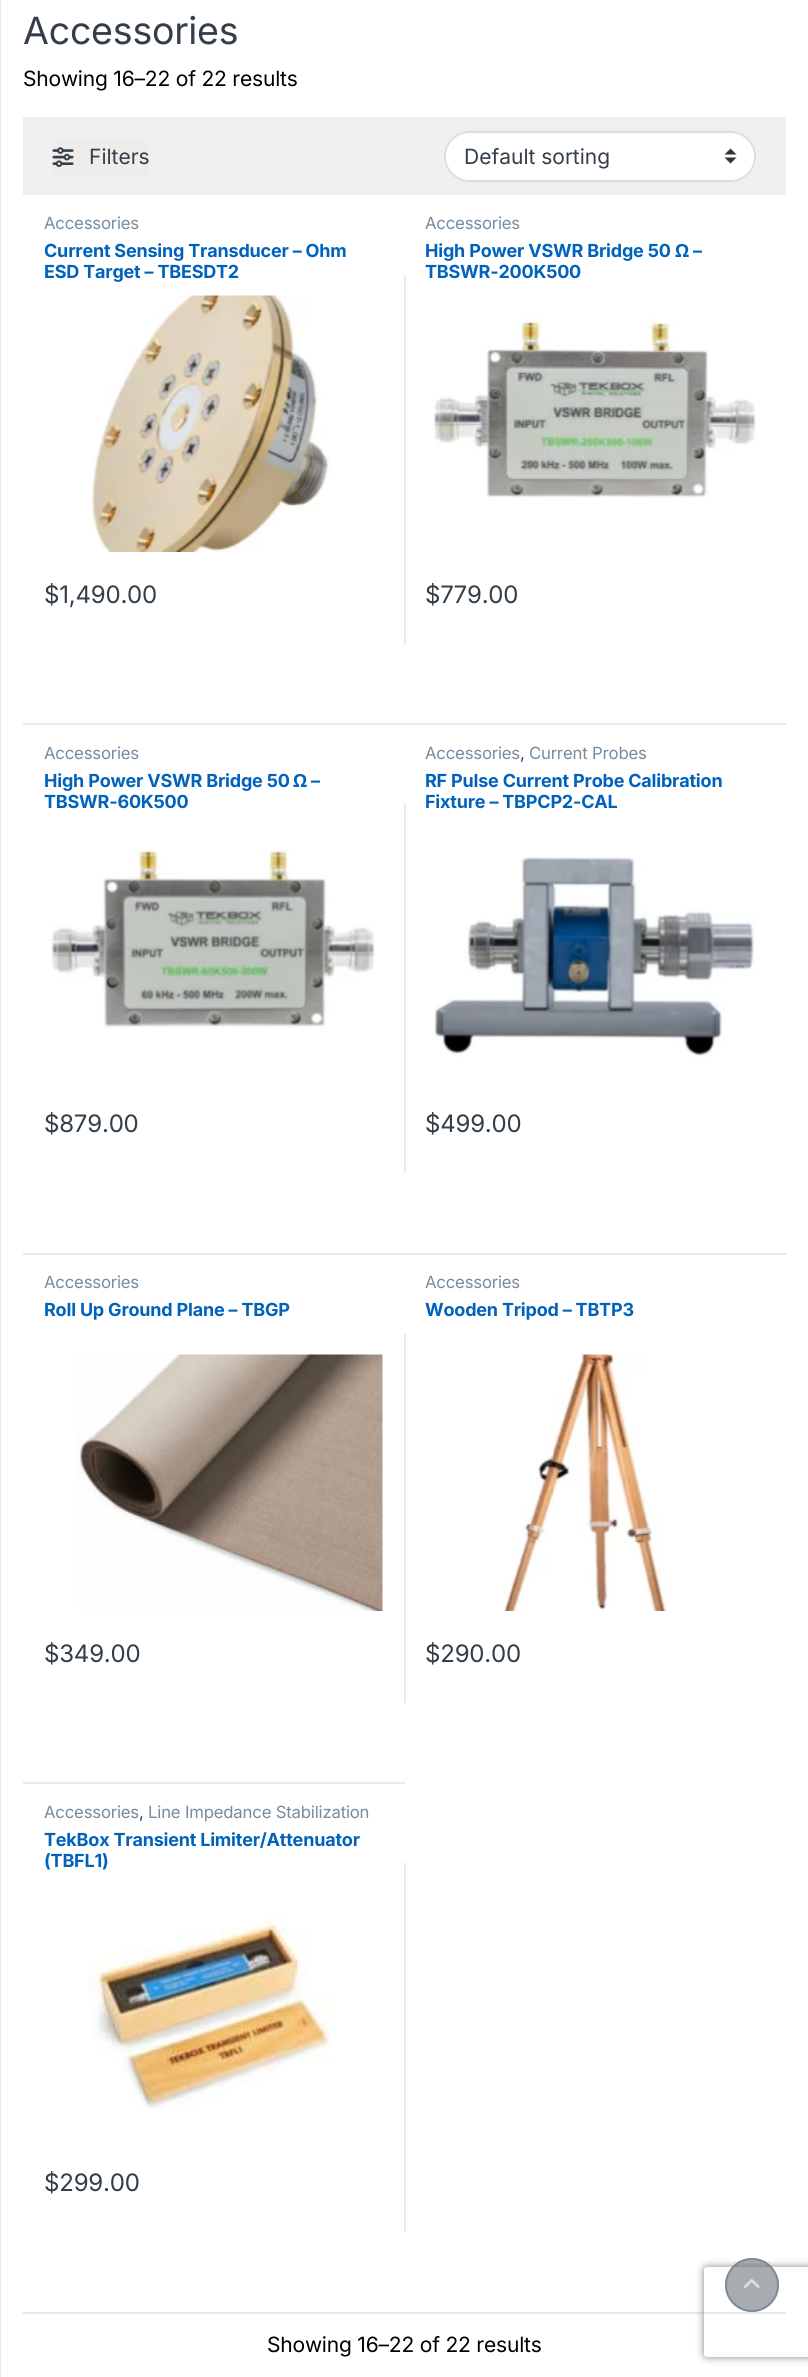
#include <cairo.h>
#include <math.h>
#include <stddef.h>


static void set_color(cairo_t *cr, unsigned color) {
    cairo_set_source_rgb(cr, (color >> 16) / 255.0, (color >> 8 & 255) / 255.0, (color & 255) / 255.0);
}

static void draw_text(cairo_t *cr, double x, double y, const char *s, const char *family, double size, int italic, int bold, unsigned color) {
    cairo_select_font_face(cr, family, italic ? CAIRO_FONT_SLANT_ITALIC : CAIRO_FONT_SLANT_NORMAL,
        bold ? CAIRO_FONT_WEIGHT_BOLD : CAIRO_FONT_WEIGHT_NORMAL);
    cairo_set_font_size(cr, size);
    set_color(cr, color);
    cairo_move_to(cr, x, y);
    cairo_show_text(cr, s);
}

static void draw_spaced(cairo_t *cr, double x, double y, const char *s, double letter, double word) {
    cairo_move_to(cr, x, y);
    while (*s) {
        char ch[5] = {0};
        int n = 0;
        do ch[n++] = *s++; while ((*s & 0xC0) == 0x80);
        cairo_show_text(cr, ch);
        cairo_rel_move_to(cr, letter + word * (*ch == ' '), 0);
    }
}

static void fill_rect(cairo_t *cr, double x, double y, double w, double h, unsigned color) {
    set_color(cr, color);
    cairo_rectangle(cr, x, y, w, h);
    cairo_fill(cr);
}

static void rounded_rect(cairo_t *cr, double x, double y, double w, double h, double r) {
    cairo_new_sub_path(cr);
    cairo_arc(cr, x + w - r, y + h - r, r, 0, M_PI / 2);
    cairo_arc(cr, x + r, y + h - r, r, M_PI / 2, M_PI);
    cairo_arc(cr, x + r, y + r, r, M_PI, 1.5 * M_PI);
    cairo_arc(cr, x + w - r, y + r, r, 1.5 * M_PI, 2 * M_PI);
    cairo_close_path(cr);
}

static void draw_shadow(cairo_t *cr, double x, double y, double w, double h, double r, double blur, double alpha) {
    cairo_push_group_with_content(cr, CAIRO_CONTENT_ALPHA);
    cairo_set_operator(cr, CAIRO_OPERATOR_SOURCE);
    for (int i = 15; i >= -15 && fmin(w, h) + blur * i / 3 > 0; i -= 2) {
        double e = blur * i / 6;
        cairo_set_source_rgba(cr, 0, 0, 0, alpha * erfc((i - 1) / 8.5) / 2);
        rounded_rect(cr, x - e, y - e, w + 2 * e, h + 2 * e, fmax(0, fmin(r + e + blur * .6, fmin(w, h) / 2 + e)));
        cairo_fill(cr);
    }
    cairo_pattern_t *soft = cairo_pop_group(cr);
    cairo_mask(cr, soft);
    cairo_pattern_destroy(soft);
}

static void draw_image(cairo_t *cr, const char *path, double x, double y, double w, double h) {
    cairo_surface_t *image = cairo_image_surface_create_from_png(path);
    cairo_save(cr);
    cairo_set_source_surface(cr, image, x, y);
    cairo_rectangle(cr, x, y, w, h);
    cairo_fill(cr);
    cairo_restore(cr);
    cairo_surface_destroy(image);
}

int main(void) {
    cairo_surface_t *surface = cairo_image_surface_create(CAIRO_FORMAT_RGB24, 808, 2377);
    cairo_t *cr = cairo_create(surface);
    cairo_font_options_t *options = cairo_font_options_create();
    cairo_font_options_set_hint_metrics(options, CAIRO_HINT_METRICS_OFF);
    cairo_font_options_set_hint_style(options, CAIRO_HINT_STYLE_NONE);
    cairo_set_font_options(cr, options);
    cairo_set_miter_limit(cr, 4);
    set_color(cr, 0xFFFFFF);
    cairo_paint(cr);
    fill_rect(cr, 0, 0, 1, 2377, 0xE3E9EF);
    cairo_select_font_face(cr, "Inter", CAIRO_FONT_SLANT_NORMAL, CAIRO_FONT_WEIGHT_NORMAL);
    cairo_set_font_size(cr, 37.5);
    set_color(cr, 0x333E48);
    draw_spaced(cr, 23, 44, "Accessories", -0.2, 0);
    cairo_set_font_size(cr, 21);
    set_color(cr, 0x000000);
    draw_spaced(cr, 23, 86, "Showing 16–22 of 22 results", -0.2, 0);
    fill_rect(cr, 23, 117, 763, 78, 0xEFEFEF);
    fill_rect(cr, 53, 140, 96, 36, 0xEFECEC);
    draw_image(cr, "assets/img1.png", 52, 147, 22, 20);
    draw_text(cr, 89, 164, "Filters", "Inter", 21, 0, 0, 0x333E48);
    set_color(cr, 0xFFFFFF);
    rounded_rect(cr, 444, 131, 312, 51, 25.5);
    cairo_fill(cr);
    draw_image(cr, "assets/img2.png", 724, 148, 13, 16);
    rounded_rect(cr, 445, 132, 310, 49, 24.5);
    set_color(cr, 0xDDDDDD);
    cairo_stroke(cr);
    draw_text(cr, 464, 164, "Default sorting", "Inter", 21, 0, 0, 0x333E48);
    fill_rect(cr, 23, 723, 763, 2, 0xEAEAEA);
    cairo_set_font_size(cr, 16.75);
    set_color(cr, 0x768B9E);
    draw_spaced(cr, 44, 229, "Accessories", -0.2, 0);
    cairo_select_font_face(cr, "Inter", CAIRO_FONT_SLANT_NORMAL, CAIRO_FONT_WEIGHT_BOLD);
    cairo_set_font_size(cr, 18);
    set_color(cr, 0x0062BD);
    draw_spaced(cr, 44, 257, "Current Sensing Transducer – Ohm", -0.2, 0);
    draw_spaced(cr, 44, 278, "ESD Target – TBESDT2", -0.2, 0);
    draw_image(cr, "assets/img3.png", 91, 295, 239, 257);
    cairo_select_font_face(cr, "Inter", CAIRO_FONT_SLANT_NORMAL, CAIRO_FONT_WEIGHT_NORMAL);
    cairo_set_font_size(cr, 24);
    set_color(cr, 0x333E48);
    draw_spaced(cr, 44, 603, "$1,490.00", -0.2, 0);
    fill_rect(cr, 404, 275, 2, 369, 0xEAEAEA);
    cairo_set_font_size(cr, 16.75);
    set_color(cr, 0x768B9E);
    draw_spaced(cr, 425, 229, "Accessories", -0.2, 0);
    cairo_select_font_face(cr, "Inter", CAIRO_FONT_SLANT_NORMAL, CAIRO_FONT_WEIGHT_BOLD);
    cairo_set_font_size(cr, 18);
    set_color(cr, 0x0062BD);
    draw_spaced(cr, 425, 257, "High Power VSWR Bridge 50", -0.2, 0);
    cairo_select_font_face(cr, "Open Sans", CAIRO_FONT_SLANT_NORMAL, CAIRO_FONT_WEIGHT_BOLD);
    draw_spaced(cr, 675, 257, "Ω", -0.2, 0);
    cairo_select_font_face(cr, "Inter", CAIRO_FONT_SLANT_NORMAL, CAIRO_FONT_WEIGHT_BOLD);
    draw_spaced(cr, 693, 257, "–", -0.2, 0);
    draw_spaced(cr, 425, 278, "TBSWR-200K500", -0.2, 0);
    draw_image(cr, "assets/img4.png", 433, 318, 323, 181);
    cairo_select_font_face(cr, "Inter", CAIRO_FONT_SLANT_NORMAL, CAIRO_FONT_WEIGHT_NORMAL);
    cairo_set_font_size(cr, 24);
    set_color(cr, 0x333E48);
    draw_spaced(cr, 425, 603, "$779.00", -0.2, 0);
    fill_rect(cr, 23, 1253, 763, 2, 0xEAEAEA);
    cairo_set_font_size(cr, 16.75);
    set_color(cr, 0x768B9E);
    draw_spaced(cr, 44, 759, "Accessories", -0.2, 0);
    cairo_select_font_face(cr, "Inter", CAIRO_FONT_SLANT_NORMAL, CAIRO_FONT_WEIGHT_BOLD);
    cairo_set_font_size(cr, 18);
    set_color(cr, 0x0062BD);
    draw_spaced(cr, 44, 787, "High Power VSWR Bridge 50", -0.2, 0);
    cairo_select_font_face(cr, "Open Sans", CAIRO_FONT_SLANT_NORMAL, CAIRO_FONT_WEIGHT_BOLD);
    draw_spaced(cr, 293, 787, "Ω", -0.2, 0);
    cairo_select_font_face(cr, "Inter", CAIRO_FONT_SLANT_NORMAL, CAIRO_FONT_WEIGHT_BOLD);
    draw_spaced(cr, 311, 787, "–", -0.2, 0);
    draw_spaced(cr, 44, 808, "TBSWR-60K500", -0.2, 0);
    draw_image(cr, "assets/img5.png", 51, 849, 324, 180);
    cairo_select_font_face(cr, "Inter", CAIRO_FONT_SLANT_NORMAL, CAIRO_FONT_WEIGHT_NORMAL);
    cairo_set_font_size(cr, 24);
    set_color(cr, 0x333E48);
    draw_spaced(cr, 44, 1132, "$879.00", -0.2, 0);
    fill_rect(cr, 404, 804, 2, 369, 0xEAEAEA);
    cairo_set_font_size(cr, 16.75);
    set_color(cr, 0x768B9E);
    draw_spaced(cr, 425, 759, "Accessories", -0.2, 0);
    set_color(cr, 0x333E48);
    draw_spaced(cr, 520, 759, ",", -0.2, 0);
    set_color(cr, 0x768B9E);
    draw_spaced(cr, 529, 759, "Current Probes", -0.2, 0);
    cairo_select_font_face(cr, "Inter", CAIRO_FONT_SLANT_NORMAL, CAIRO_FONT_WEIGHT_BOLD);
    cairo_set_font_size(cr, 18);
    set_color(cr, 0x0062BD);
    draw_spaced(cr, 425, 787, "RF Pulse Current Probe Calibration", -0.2, 0);
    draw_spaced(cr, 425, 808, "Fixture – TBPCP2-CAL", -0.2, 0);
    draw_image(cr, "assets/img6.png", 433, 857, 322, 200);
    cairo_select_font_face(cr, "Inter", CAIRO_FONT_SLANT_NORMAL, CAIRO_FONT_WEIGHT_NORMAL);
    cairo_set_font_size(cr, 24);
    set_color(cr, 0x333E48);
    draw_spaced(cr, 425, 1132, "$499.00", -0.2, 0);
    fill_rect(cr, 23, 1782, 382, 2, 0xEAEAEA);
    cairo_set_font_size(cr, 16.75);
    set_color(cr, 0x768B9E);
    draw_spaced(cr, 44, 1288, "Accessories", -0.2, 0);
    cairo_select_font_face(cr, "Inter", CAIRO_FONT_SLANT_NORMAL, CAIRO_FONT_WEIGHT_BOLD);
    cairo_set_font_size(cr, 18);
    set_color(cr, 0x0062BD);
    draw_spaced(cr, 44, 1316, "Roll Up Ground Plane – TBGP", -0.2, 0);
    draw_image(cr, "assets/img7.png", 76, 1354, 307, 257);
    cairo_select_font_face(cr, "Inter", CAIRO_FONT_SLANT_NORMAL, CAIRO_FONT_WEIGHT_NORMAL);
    cairo_set_font_size(cr, 24);
    set_color(cr, 0x333E48);
    draw_spaced(cr, 44, 1662, "$349.00", -0.2, 0);
    fill_rect(cr, 404, 1334, 2, 369, 0xEAEAEA);
    cairo_set_font_size(cr, 16.75);
    set_color(cr, 0x768B9E);
    draw_spaced(cr, 425, 1288, "Accessories", -0.2, 0);
    cairo_select_font_face(cr, "Inter", CAIRO_FONT_SLANT_NORMAL, CAIRO_FONT_WEIGHT_BOLD);
    cairo_set_font_size(cr, 18);
    set_color(cr, 0x0062BD);
    draw_spaced(cr, 425, 1316, "Wooden Tripod – TBTP3", -0.2, 0);
    draw_image(cr, "assets/img8.png", 503, 1354, 164, 257);
    cairo_select_font_face(cr, "Inter", CAIRO_FONT_SLANT_NORMAL, CAIRO_FONT_WEIGHT_NORMAL);
    cairo_set_font_size(cr, 24);
    set_color(cr, 0x333E48);
    draw_spaced(cr, 425, 1662, "$290.00", -0.2, 0);
    cairo_set_font_size(cr, 16.75);
    set_color(cr, 0x768B9E);
    draw_spaced(cr, 44, 1818, "Accessories", -0.2, 0);
    set_color(cr, 0x333E48);
    draw_spaced(cr, 139, 1818, ",", -0.2, 0);
    set_color(cr, 0x768B9E);
    draw_spaced(cr, 148, 1818, "Line Impedance Stabilization", -0.2, 0);
    cairo_select_font_face(cr, "Inter", CAIRO_FONT_SLANT_NORMAL, CAIRO_FONT_WEIGHT_BOLD);
    cairo_set_font_size(cr, 18);
    set_color(cr, 0x0062BD);
    draw_spaced(cr, 44, 1846, "TekBox Transient Limiter/Attenuator", -0.2, 0);
    draw_spaced(cr, 44, 1867, "(TBFL1)", -0.2, 0);
    draw_image(cr, "assets/img9.png", 88, 1917, 243, 193);
    cairo_select_font_face(cr, "Inter", CAIRO_FONT_SLANT_NORMAL, CAIRO_FONT_WEIGHT_NORMAL);
    cairo_set_font_size(cr, 24);
    set_color(cr, 0x333E48);
    draw_spaced(cr, 44, 2191, "$299.00", -0.2, 0);
    fill_rect(cr, 404, 1863, 2, 369, 0xEAEAEA);
    fill_rect(cr, 23, 2312, 763, 2, 0xE7E7E7);
    cairo_set_font_size(cr, 21);
    set_color(cr, 0x000000);
    draw_spaced(cr, 267, 2352, "Showing 16–22 of 22 results", -0.2, 0);
    cairo_save(cr);
    cairo_set_fill_rule(cr, CAIRO_FILL_RULE_EVEN_ODD);
    cairo_new_path(cr);
    cairo_move_to(cr, 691, 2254);
    cairo_line_to(cr, 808, 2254);
    cairo_line_to(cr, 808, 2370);
    cairo_line_to(cr, 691, 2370);
    cairo_close_path(cr);
    cairo_move_to(cr, 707, 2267);
    cairo_line_to(cr, 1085, 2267);
    cairo_curve_to(cr, 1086.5, 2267, 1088, 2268.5, 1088, 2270);
    cairo_line_to(cr, 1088, 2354);
    cairo_curve_to(cr, 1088, 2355.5, 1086.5, 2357, 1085, 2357);
    cairo_line_to(cr, 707, 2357);
    cairo_curve_to(cr, 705.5, 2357, 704, 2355.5, 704, 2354);
    cairo_line_to(cr, 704, 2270);
    cairo_curve_to(cr, 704, 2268.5, 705.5, 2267, 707, 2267);
    cairo_close_path(cr);
    cairo_clip(cr);
    set_color(cr, 0x808080);
    draw_shadow(cr, 704, 2267, 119, 90, 3, 4, 1);
    cairo_restore(cr);
    cairo_set_source_rgba(cr, 0.424, 0.459, 0.49, 0.6);
    cairo_arc(cr, 752, 2285, 27, 0, 2 * M_PI);
    cairo_fill(cr);
    cairo_arc(cr, 752, 2285, 26, 0, 2 * M_PI);
    cairo_stroke(cr);
    draw_image(cr, "assets/img10.png", 743, 2279, 17, 9);
    cairo_surface_write_to_png(surface, "output.png");
    cairo_font_options_destroy(options);
    cairo_destroy(cr);
    cairo_surface_destroy(surface);
    return 0;
}
